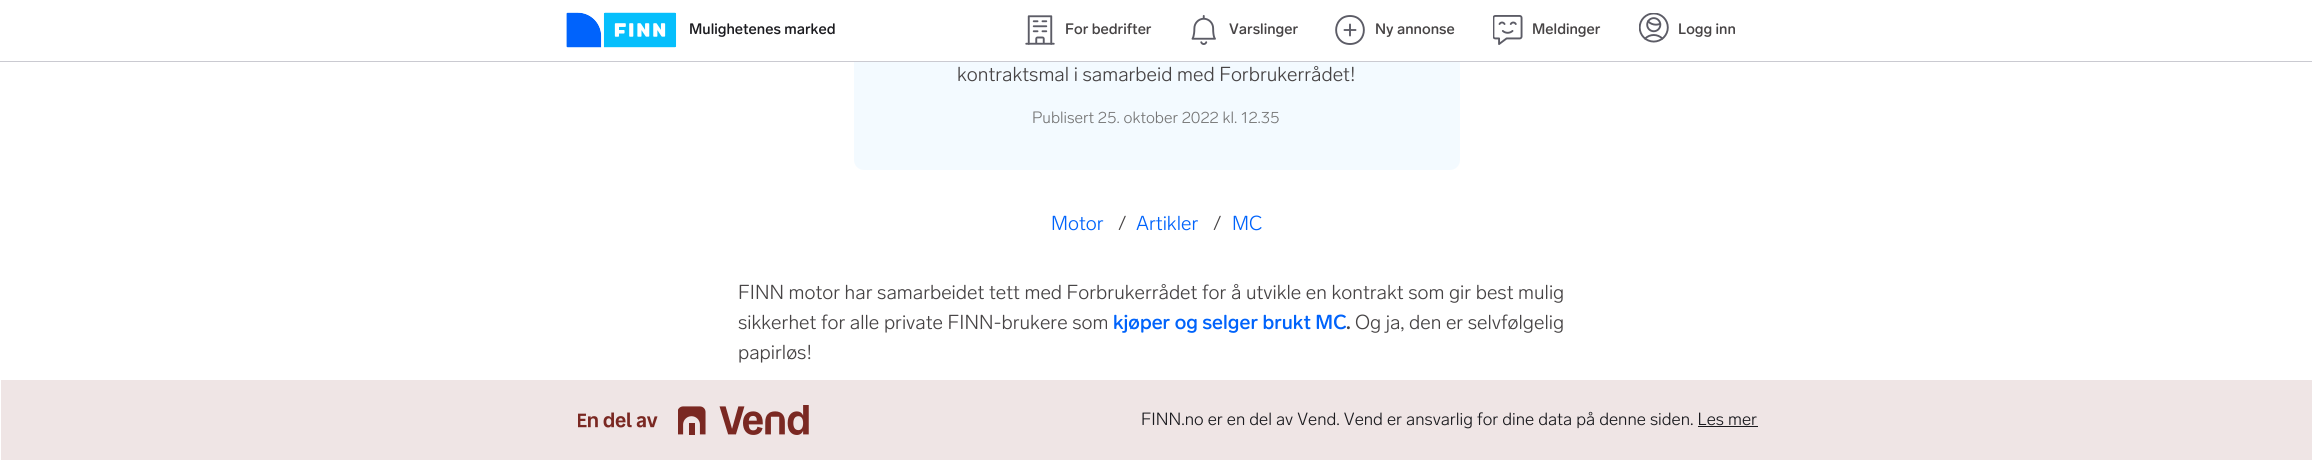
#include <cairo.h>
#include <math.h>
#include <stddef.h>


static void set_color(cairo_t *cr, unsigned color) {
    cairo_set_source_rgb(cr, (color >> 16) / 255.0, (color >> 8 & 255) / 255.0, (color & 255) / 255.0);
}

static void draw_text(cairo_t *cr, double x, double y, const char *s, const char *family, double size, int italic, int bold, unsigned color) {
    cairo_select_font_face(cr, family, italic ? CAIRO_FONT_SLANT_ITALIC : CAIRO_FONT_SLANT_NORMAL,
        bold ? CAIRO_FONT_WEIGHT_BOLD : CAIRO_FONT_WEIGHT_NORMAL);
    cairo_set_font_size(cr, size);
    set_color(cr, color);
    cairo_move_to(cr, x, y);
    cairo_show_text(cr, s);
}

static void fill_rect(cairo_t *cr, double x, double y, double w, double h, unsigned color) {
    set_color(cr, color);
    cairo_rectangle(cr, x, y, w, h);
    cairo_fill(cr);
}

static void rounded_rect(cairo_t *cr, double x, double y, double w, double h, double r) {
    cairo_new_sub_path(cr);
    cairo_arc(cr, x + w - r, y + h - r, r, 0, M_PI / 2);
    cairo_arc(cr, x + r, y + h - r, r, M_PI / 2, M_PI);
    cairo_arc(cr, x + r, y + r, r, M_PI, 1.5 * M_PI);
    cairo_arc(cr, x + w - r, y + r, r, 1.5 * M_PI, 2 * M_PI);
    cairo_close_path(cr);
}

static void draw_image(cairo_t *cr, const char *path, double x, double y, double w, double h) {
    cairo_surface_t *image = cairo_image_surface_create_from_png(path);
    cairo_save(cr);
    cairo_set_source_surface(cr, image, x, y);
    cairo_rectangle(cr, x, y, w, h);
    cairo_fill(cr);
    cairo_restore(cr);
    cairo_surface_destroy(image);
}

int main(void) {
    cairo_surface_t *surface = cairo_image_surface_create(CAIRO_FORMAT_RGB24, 2312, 460);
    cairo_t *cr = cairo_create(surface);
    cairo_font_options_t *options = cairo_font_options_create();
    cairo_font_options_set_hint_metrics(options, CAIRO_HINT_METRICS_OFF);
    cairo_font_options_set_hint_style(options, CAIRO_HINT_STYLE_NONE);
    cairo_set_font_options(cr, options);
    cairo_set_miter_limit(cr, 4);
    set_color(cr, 0xFFFFFF);
    cairo_paint(cr);
    set_color(cr, 0xF3FAFF);
    rounded_rect(cr, 854, -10, 606, 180, 10);
    cairo_fill(cr);
    fill_rect(cr, 854, 0, 606, 61, 0xFFFFFF);
    fill_rect(cr, 0, 61, 2312, 1, 0xCACAD1);
    draw_image(cr, "assets/img1.png", 566, 12, 111, 36);
    draw_text(cr, 689, 34, "Mulighetenes marked", "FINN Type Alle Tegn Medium", 15, 0, 0, 0x1B1B1F);
    draw_image(cr, "assets/img2.png", 1025, 15, 30, 30);
    draw_text(cr, 1065, 34, "For bedrifter", "FINN Type Alle Tegn Medium", 15, 0, 0, 0x474445);
    draw_image(cr, "assets/img3.png", 1191, 15, 25, 30);
    draw_text(cr, 1229, 34, "Varslinger", "FINN Type Alle Tegn Medium", 15, 0, 0, 0x474445);
    cairo_new_path(cr);
    cairo_move_to(cr, 1350, 24.5);
    cairo_line_to(cr, 1350, 35.5);
    cairo_move_to(cr, 1344.5, 30);
    cairo_line_to(cr, 1355.5, 30);
    cairo_move_to(cr, 1350, 44);
    cairo_curve_to(cr, 1368.5, 44, 1368.5, 16, 1350, 16);
    cairo_curve_to(cr, 1331.5, 16, 1331.5, 44, 1350, 44);
    set_color(cr, 0x5C5C66);
    cairo_set_line_width(cr, 1.9);
    cairo_set_line_cap(cr, CAIRO_LINE_CAP_ROUND);
    cairo_set_line_join(cr, CAIRO_LINE_JOIN_ROUND);
    cairo_stroke(cr);
    draw_text(cr, 1375, 34, "Ny annonse", "FINN Type Alle Tegn Medium", 15, 0, 0, 0x474445);
    draw_image(cr, "assets/img4.png", 1493, 15, 30, 30);
    draw_text(cr, 1532, 34, "Meldinger", "FINN Type Alle Tegn Medium", 15, 0, 0, 0x474445);
    draw_image(cr, "assets/img5.png", 1639, 13, 30, 30);
    draw_text(cr, 1678, 34, "Logg inn", "FINN Type Alle Tegn Medium", 15, 0, 0, 0x474445);
    draw_text(cr, 957, 81, "kontraktsmal i samarbeid med Forbrukerrådet!", "FINN Type Alle Tegn Light", 20, 0, 0, 0x474445);
    draw_text(cr, 1032, 123, "Publisert 25. oktober 2022 kl. 12.35", "FINN Type Alle Tegn Light", 16.25, 0, 0, 0x767676);
    draw_text(cr, 1051, 230, "Motor", "FINN Type Alle Tegn Light", 20, 0, 0, 0x0063FB);
    draw_text(cr, 1118, 230, "/", "FINN Type Alle Tegn Light", 20, 0, 0, 0x474445);
    draw_text(cr, 1136, 230, "Artikler", "FINN Type Alle Tegn Light", 20, 0, 0, 0x0063FB);
    draw_text(cr, 1213, 230, "/", "FINN Type Alle Tegn Light", 20, 0, 0, 0x474445);
    draw_text(cr, 1232, 230, "MC", "FINN Type Alle Tegn Light", 20, 0, 0, 0x0063FB);
    draw_text(cr, 738, 299, "FINN motor har samarbeidet tett med Forbrukerrådet for å utvikle en kontrakt som gir best mulig", "FINN Type Alle Tegn Light", 20, 0, 0, 0x474445);
    draw_text(cr, 738, 329, "sikkerhet for alle private FINN-brukere som", "FINN Type Alle Tegn Light", 20, 0, 0, 0x474445);
    draw_text(cr, 1113, 329, "kjøper og selger brukt MC", "FINN Type Alle Tegn Medium", 20, 0, 0, 0x0063FB);
    draw_text(cr, 1346, 329, ".", "FINN Type Alle Tegn Medium", 20, 0, 0, 0x474445);
    draw_text(cr, 1355, 329, "Og ja, den er selvfølgelig", "FINN Type Alle Tegn Light", 20, 0, 0, 0x474445);
    draw_text(cr, 738, 359, "papirløs!", "FINN Type Alle Tegn Light", 20, 0, 0, 0x474445);
    fill_rect(cr, 1, 380, 2311, 80, 0xEFE5E5);
    draw_image(cr, "assets/img6.png", 578, 405, 231, 30);
    draw_text(cr, 1141, 425, "FINN.no er en del av Vend. Vend er ansvarlig for dine data på denne siden. Les mer", "FINN Type Alle Tegn Light", 17.5, 0, 0, 0x1B1B1F);
    fill_rect(cr, 1698, 426, 60, 1, 0x1B1B1F);
    cairo_surface_write_to_png(surface, "output.png");
    cairo_font_options_destroy(options);
    cairo_destroy(cr);
    cairo_surface_destroy(surface);
    return 0;
}
